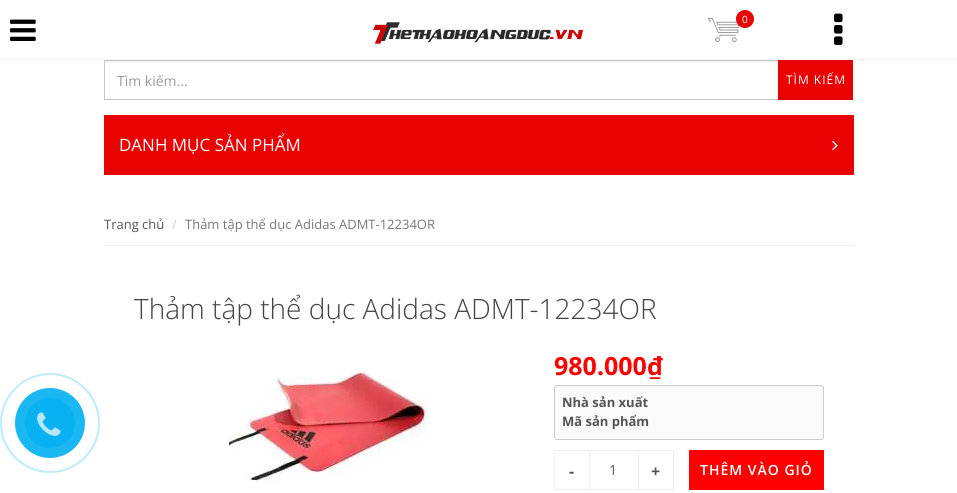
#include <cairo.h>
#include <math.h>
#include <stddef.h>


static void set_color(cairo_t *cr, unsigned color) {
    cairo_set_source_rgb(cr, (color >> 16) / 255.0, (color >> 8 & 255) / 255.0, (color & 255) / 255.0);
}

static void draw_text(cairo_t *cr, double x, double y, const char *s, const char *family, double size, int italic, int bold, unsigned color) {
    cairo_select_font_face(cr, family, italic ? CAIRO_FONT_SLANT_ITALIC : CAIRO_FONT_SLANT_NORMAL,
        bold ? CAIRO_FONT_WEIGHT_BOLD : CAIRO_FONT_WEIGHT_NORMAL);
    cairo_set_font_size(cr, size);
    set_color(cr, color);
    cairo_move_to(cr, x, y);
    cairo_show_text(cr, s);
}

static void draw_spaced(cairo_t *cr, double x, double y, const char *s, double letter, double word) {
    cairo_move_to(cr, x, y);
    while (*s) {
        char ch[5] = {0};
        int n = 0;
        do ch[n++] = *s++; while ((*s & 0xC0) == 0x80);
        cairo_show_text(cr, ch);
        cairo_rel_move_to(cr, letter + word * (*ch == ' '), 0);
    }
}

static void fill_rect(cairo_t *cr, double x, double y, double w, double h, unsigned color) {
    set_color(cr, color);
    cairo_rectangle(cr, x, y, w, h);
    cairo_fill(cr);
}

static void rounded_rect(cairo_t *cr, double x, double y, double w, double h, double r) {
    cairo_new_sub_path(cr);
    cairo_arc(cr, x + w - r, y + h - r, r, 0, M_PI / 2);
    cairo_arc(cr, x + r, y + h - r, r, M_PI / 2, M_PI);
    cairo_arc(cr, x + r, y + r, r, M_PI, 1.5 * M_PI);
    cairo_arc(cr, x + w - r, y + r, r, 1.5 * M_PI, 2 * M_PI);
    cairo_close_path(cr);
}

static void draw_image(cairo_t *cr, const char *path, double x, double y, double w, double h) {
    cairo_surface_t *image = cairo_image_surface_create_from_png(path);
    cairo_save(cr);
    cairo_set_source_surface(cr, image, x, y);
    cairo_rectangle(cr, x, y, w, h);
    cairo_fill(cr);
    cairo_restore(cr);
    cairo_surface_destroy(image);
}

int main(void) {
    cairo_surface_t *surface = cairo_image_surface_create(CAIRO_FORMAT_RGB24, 957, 493);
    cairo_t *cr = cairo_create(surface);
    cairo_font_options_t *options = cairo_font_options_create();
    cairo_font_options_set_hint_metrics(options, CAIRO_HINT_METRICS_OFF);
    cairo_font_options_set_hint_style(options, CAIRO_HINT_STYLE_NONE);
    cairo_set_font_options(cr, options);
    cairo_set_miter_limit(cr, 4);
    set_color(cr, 0xFFFFFF);
    cairo_paint(cr);
    draw_image(cr, "assets/img1.png", 10, 19, 26, 22);
    fill_rect(cr, 0, 59, 957, 1, 0xF5F5F5);
    draw_image(cr, "assets/img2.png", 834, 13, 9, 32);
    draw_image(cr, "assets/img3.png", 708, 18, 32, 24);
    set_color(cr, 0xE90000);
    cairo_arc(cr, 745, 19, 9, 0, 2 * M_PI);
    cairo_fill(cr);
    draw_text(cr, 742, 23, "0", "Open Sans", 10, 0, 0, 0xFFFFFF);
    fill_rect(cr, 105, 61, 674, 1, 0xECECEC);
    fill_rect(cr, 104, 60, 675, 1, 0xC6C6C6);
    fill_rect(cr, 104, 99, 675, 1, 0xC6C6C6);
    fill_rect(cr, 104, 60, 1, 40, 0xC6C6C6);
    draw_text(cr, 117, 86, "Tìm kiếm...", "Open Sans", 14, 0, 0, 0x999999);
    fill_rect(cr, 778, 60, 75, 40, 0xE90000);
    cairo_set_font_size(cr, 12);
    set_color(cr, 0xFFFFFF);
    draw_spaced(cr, 786, 84, "TÌM KIẾM", 1, 0);
    draw_image(cr, "assets/img4.png", 373, 22, 211, 22);
    fill_rect(cr, 104, 115, 750, 60, 0xE90000);
    draw_text(cr, 119, 151, "DANH MỤC SẢN PHẨM", "Open Sans", 17, 0, 0, 0xFFFFFF);
    draw_image(cr, "assets/img5.png", 832, 140, 6, 11);
    fill_rect(cr, 104, 245, 750, 1, 0xEEEEEE);
    draw_text(cr, 104, 229, "Trang chủ", "Open Sans", 13, 0, 0, 0x555555);
    draw_text(cr, 172, 229, "/", "Open Sans", 13, 0, 0, 0xCCCCCC);
    draw_text(cr, 185, 229, "Thảm tập thể dục Adidas ADMT-12234OR", "Open Sans", 13, 0, 0, 0x777777);
    cairo_new_path(cr);
    cairo_arc(cr, 50, 423, 49, 0, 2 * M_PI);
    set_color(cr, 0xBFEBFC);
    cairo_stroke(cr);
    set_color(cr, 0x1AB7F3);
    cairo_arc(cr, 50, 423, 35, 0, 2 * M_PI);
    cairo_fill(cr);
    set_color(cr, 0x08B1F2);
    cairo_arc(cr, 50, 423, 25, 0, 2 * M_PI);
    cairo_fill(cr);
    draw_image(cr, "assets/img6.png", 37, 412, 24, 24);
    draw_text(cr, 134, 319, "Thảm tập thể dục Adidas ADMT-12234OR", "Open Sans Light", 28, 0, 0, 0x444444);
    draw_image(cr, "assets/img7.png", 229, 369, 200, 112);
    draw_text(cr, 554, 375, "980.000₫", "Open Sans", 25, 0, 1, 0xFF0000);
    set_color(cr, 0xFAFAFA);
    rounded_rect(cr, 554.5, 385.5, 269, 54, 2.5);
    cairo_fill_preserve(cr);
    set_color(cr, 0xCCCCCC);
    cairo_set_line_width(cr, 1);
    cairo_stroke(cr);
    draw_text(cr, 562, 407, "Nhà sản xuất", "Open Sans", 13, 0, 1, 0x555555);
    draw_text(cr, 562, 426, "Mã sản phẩm", "Open Sans", 13, 0, 1, 0x555555);
    cairo_rectangle(cr, 554.5, 450.5, 35, 39);
    set_color(cr, 0xEEEEEE);
    cairo_stroke(cr);
    draw_text(cr, 569, 477, "-", "Open Sans", 16, 0, 1, 0x555555);
    fill_rect(cr, 590, 450, 48, 1, 0xEEEEEE);
    fill_rect(cr, 590, 489, 48, 1, 0xEEEEEE);
    draw_text(cr, 609, 475, "1", "Open Sans", 14, 0, 0, 0x555555);
    cairo_rectangle(cr, 638.5, 450.5, 35, 39);
    set_color(cr, 0xEEEEEE);
    cairo_stroke(cr);
    draw_text(cr, 651, 477, "+", "Open Sans", 16, 0, 1, 0x555555);
    fill_rect(cr, 689, 450, 135, 40, 0xFF0000);
    cairo_select_font_face(cr, "Open Sans SemiBold", CAIRO_FONT_SLANT_NORMAL, CAIRO_FONT_WEIGHT_NORMAL);
    cairo_set_font_size(cr, 14);
    set_color(cr, 0xFFFFFF);
    draw_spaced(cr, 700, 475, "THÊM VÀO GIỎ", 1, 0);
    cairo_surface_write_to_png(surface, "output.png");
    cairo_font_options_destroy(options);
    cairo_destroy(cr);
    cairo_surface_destroy(surface);
    return 0;
}
